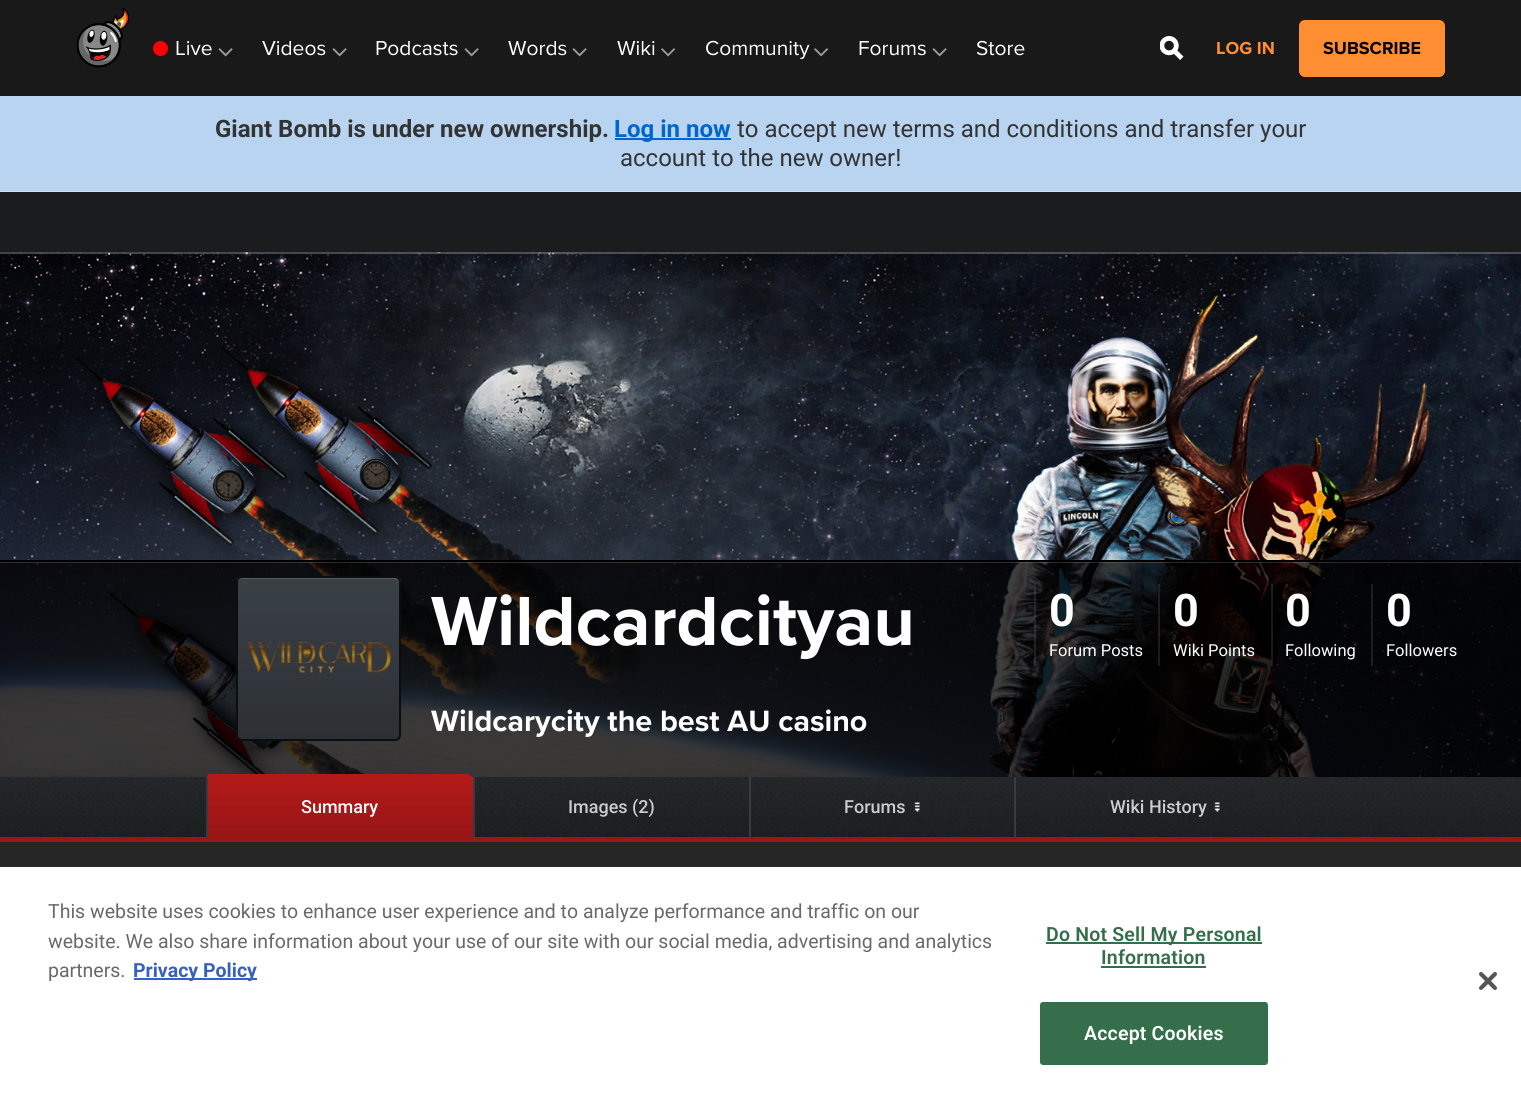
#include <cairo.h>
#include <math.h>
#include <stddef.h>


static void set_color(cairo_t *cr, unsigned color) {
    cairo_set_source_rgb(cr, (color >> 16) / 255.0, (color >> 8 & 255) / 255.0, (color & 255) / 255.0);
}

static void draw_text(cairo_t *cr, double x, double y, const char *s, const char *family, double size, int italic, int bold, unsigned color) {
    cairo_select_font_face(cr, family, italic ? CAIRO_FONT_SLANT_ITALIC : CAIRO_FONT_SLANT_NORMAL,
        bold ? CAIRO_FONT_WEIGHT_BOLD : CAIRO_FONT_WEIGHT_NORMAL);
    cairo_set_font_size(cr, size);
    set_color(cr, color);
    cairo_move_to(cr, x, y);
    cairo_show_text(cr, s);
}

static void draw_spaced(cairo_t *cr, double x, double y, const char *s, double letter, double word) {
    cairo_move_to(cr, x, y);
    while (*s) {
        char ch[5] = {0};
        int n = 0;
        do ch[n++] = *s++; while ((*s & 0xC0) == 0x80);
        cairo_show_text(cr, ch);
        cairo_rel_move_to(cr, letter + word * (*ch == ' '), 0);
    }
}

static void fill_rect(cairo_t *cr, double x, double y, double w, double h, unsigned color) {
    set_color(cr, color);
    cairo_rectangle(cr, x, y, w, h);
    cairo_fill(cr);
}

static void rounded_rect(cairo_t *cr, double x, double y, double w, double h, double r) {
    cairo_new_sub_path(cr);
    cairo_arc(cr, x + w - r, y + h - r, r, 0, M_PI / 2);
    cairo_arc(cr, x + r, y + h - r, r, M_PI / 2, M_PI);
    cairo_arc(cr, x + r, y + r, r, M_PI, 1.5 * M_PI);
    cairo_arc(cr, x + w - r, y + r, r, 1.5 * M_PI, 2 * M_PI);
    cairo_close_path(cr);
}

static void draw_image(cairo_t *cr, const char *path, double x, double y, double w, double h) {
    cairo_surface_t *image = cairo_image_surface_create_from_png(path);
    cairo_save(cr);
    cairo_set_source_surface(cr, image, x, y);
    cairo_rectangle(cr, x, y, w, h);
    cairo_fill(cr);
    cairo_restore(cr);
    cairo_surface_destroy(image);
}

int main(void) {
    cairo_surface_t *surface = cairo_image_surface_create(CAIRO_FORMAT_RGB24, 1521, 1095);
    cairo_t *cr = cairo_create(surface);
    cairo_font_options_t *options = cairo_font_options_create();
    cairo_font_options_set_hint_metrics(options, CAIRO_HINT_METRICS_OFF);
    cairo_font_options_set_hint_style(options, CAIRO_HINT_STYLE_NONE);
    cairo_set_font_options(cr, options);
    cairo_set_miter_limit(cr, 4);
    cairo_pattern_t *gradient;
    set_color(cr, 0x262626);
    cairo_paint(cr);
    fill_rect(cr, 0, 0, 1521, 96, 0x191919);
    draw_image(cr, "assets/img1.png", 77, 8, 52, 60);
    set_color(cr, 0xFF0000);
    cairo_arc(cr, 160.5, 48.5, 7.5, 0, 2 * M_PI);
    cairo_fill(cr);
    draw_text(cr, 175, 55, "Live", "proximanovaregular", 21, 0, 0, 0xFFFFFF);
    draw_image(cr, "assets/img2.png", 218, 48, 15, 9);
    draw_text(cr, 262, 55, "Videos", "proximanovaregular", 21, 0, 0, 0xFFFFFF);
    draw_image(cr, "assets/img2.png", 332, 48, 15, 9);
    draw_text(cr, 375, 55, "Podcasts", "proximanovaregular", 21, 0, 0, 0xFFFFFF);
    draw_image(cr, "assets/img2.png", 464, 48, 15, 9);
    draw_text(cr, 508, 55, "Words", "proximanovaregular", 21, 0, 0, 0xFFFFFF);
    draw_image(cr, "assets/img2.png", 572, 48, 15, 9);
    draw_text(cr, 617, 55, "Wiki", "proximanovaregular", 21, 0, 0, 0xFFFFFF);
    draw_image(cr, "assets/img3.png", 661, 48, 15, 9);
    draw_text(cr, 705, 55, "Community", "proximanovaregular", 21, 0, 0, 0xFFFFFF);
    draw_image(cr, "assets/img3.png", 814, 48, 15, 9);
    draw_text(cr, 858, 55, "Forums", "proximanovaregular", 21, 0, 0, 0xFFFFFF);
    draw_image(cr, "assets/img2.png", 932, 48, 15, 9);
    draw_text(cr, 976, 55, "Store", "proximanovaregular", 21, 0, 0, 0xFFFFFF);
    draw_image(cr, "assets/img4.png", 1160, 36, 24, 24);
    draw_text(cr, 1216, 54, "LOG IN", "Proxima Nova", 18, 0, 1, 0xFF8E33);
    rounded_rect(cr, 1299, 20, 146, 57, 6);
    cairo_fill(cr);
    draw_text(cr, 1323, 54, "SUBSCRIBE", "Proxima Nova", 18, 0, 1, 0x000000);
    fill_rect(cr, 0, 96, 1521, 95, 0xB8D4F0);
    fill_rect(cr, 0, 191, 1521, 1, 0xDDDDDD);
    draw_text(cr, 215, 137, "Giant Bomb is under new ownership.", "Roboto", 24, 0, 1, 0x333333);
    fill_rect(cr, 615, 138, 116, 2, 0x0066CC);
    draw_text(cr, 614, 137, "Log in now", "Roboto", 24, 0, 1, 0x0066CC);
    draw_text(cr, 737, 137, "to accept new terms and conditions and transfer your", "Roboto", 24, 0, 0, 0x333333);
    draw_text(cr, 620, 166, "account to the new owner!", "Roboto", 24, 0, 0, 0x333333);
    fill_rect(cr, 0, 192, 1521, 60, 0x1B1C1D);
    draw_image(cr, "assets/img5.png", 0, 252, 1521, 525);
    cairo_set_source_rgba(cr, 1, 1, 1, 0.25);
    cairo_rectangle(cr, 0, 252, 1521, 2);
    cairo_fill(cr);
    cairo_set_source_rgba(cr, 0, 0, 0, 0.75);
    cairo_rectangle(cr, 0, 562, 1521, 215);
    cairo_fill(cr);
    cairo_set_source_rgba(cr, 1, 1, 1, 0.15);
    cairo_rectangle(cr, 0, 562, 1521, 1);
    cairo_fill(cr);
    fill_rect(cr, 0, 560, 1521, 2, 0x000000);
    set_color(cr, 0x2C3035);
    rounded_rect(cr, 236, 576, 165, 165, 6);
    cairo_fill(cr);
    cairo_save(cr);
    rounded_rect(cr, 236, 576, 165, 165, 6);
    cairo_clip(cr);
    gradient = cairo_pattern_create_linear(318, 578, 318, 740);
    cairo_pattern_add_color_stop_rgba(gradient, 0, 0.224, 0.251, 0.275, 1);
    cairo_pattern_add_color_stop_rgba(gradient, 1, 0.224, 0.251, 0.275, 0);
    cairo_set_source(cr, gradient);
    cairo_pattern_destroy(gradient);
    cairo_rectangle(cr, 236, 578, 165, 159);
    cairo_fill(cr);
    cairo_restore(cr);
    set_color(cr, 0x575D62);
    cairo_new_path(cr);
    cairo_move_to(cr, 242, 579);
    cairo_line_to(cr, 394, 579);
    cairo_curve_to(cr, 397, 579, 399, 581, 399, 584);
    cairo_line_to(cr, 399, 583);
    cairo_curve_to(cr, 399, 580, 397, 578, 394, 578);
    cairo_line_to(cr, 242, 578);
    cairo_curve_to(cr, 239, 578, 237, 580, 237, 583);
    cairo_line_to(cr, 237, 584);
    cairo_curve_to(cr, 237, 581, 239, 579, 242, 579);
    cairo_close_path(cr);
    cairo_fill(cr);
    rounded_rect(cr, 237, 577, 163, 163, 5);
    set_color(cr, 0x0B0D0E);
    cairo_stroke(cr);
    draw_image(cr, "assets/img6.png", 247, 641, 145, 33);
    draw_text(cr, 431, 645, "Wildcardcityau", "Proxima Nova", 72, 0, 1, 0xFFFFFF);
    draw_text(cr, 431, 731, "Wildcarycity the best AU casino", "Proxima Nova", 30.5, 0, 1, 0xFFFFFF);
    cairo_set_source_rgba(cr, 1, 1, 1, 0.1);
    cairo_rectangle(cr, 1034, 584, 2, 52);
    cairo_fill(cr);
    draw_text(cr, 1049, 626, "0", "Roboto", 45, 0, 1, 0xFFFFFF);
    cairo_set_source_rgba(cr, 1, 1, 1, 0.1);
    cairo_rectangle(cr, 1158, 584, 2, 52);
    cairo_fill(cr);
    draw_text(cr, 1173, 626, "0", "Roboto", 45, 0, 1, 0xFFFFFF);
    cairo_set_source_rgba(cr, 1, 1, 1, 0.1);
    cairo_rectangle(cr, 1271, 584, 2, 52);
    cairo_fill(cr);
    draw_text(cr, 1285, 626, "0", "Roboto", 45, 0, 1, 0xFFFFFF);
    cairo_set_source_rgba(cr, 1, 1, 1, 0.1);
    cairo_rectangle(cr, 1371, 584, 2, 52);
    cairo_fill(cr);
    draw_text(cr, 1386, 626, "0", "Roboto", 45, 0, 1, 0xFFFFFF);
    cairo_set_source_rgba(cr, 1, 1, 1, 0.1);
    cairo_rectangle(cr, 1034, 636, 2, 30);
    cairo_fill(cr);
    draw_text(cr, 1049, 656, "Forum Posts", "Roboto", 16.5, 0, 0, 0xFFFFFF);
    cairo_set_source_rgba(cr, 1, 1, 1, 0.1);
    cairo_rectangle(cr, 1158, 636, 2, 30);
    cairo_fill(cr);
    draw_text(cr, 1173, 656, "Wiki Points", "Roboto", 16.5, 0, 0, 0xFFFFFF);
    cairo_set_source_rgba(cr, 1, 1, 1, 0.1);
    cairo_rectangle(cr, 1271, 636, 2, 30);
    cairo_fill(cr);
    draw_text(cr, 1285, 656, "Following", "Roboto", 16.5, 0, 0, 0xFFFFFF);
    cairo_set_source_rgba(cr, 1, 1, 1, 0.1);
    cairo_rectangle(cr, 1371, 636, 2, 30);
    cairo_fill(cr);
    draw_text(cr, 1386, 656, "Followers", "Roboto", 16.5, 0, 0, 0xFFFFFF);
    draw_image(cr, "assets/img7.png", 0, 777, 1521, 60);
    gradient = cairo_pattern_create_linear(340, 777, 340, 837);
    cairo_pattern_add_color_stop_rgba(gradient, 0, 0.702, 0.098, 0.098, 1);
    cairo_pattern_add_color_stop_rgba(gradient, 1, 0.596, 0.086, 0.086, 1);
    cairo_set_source(cr, gradient);
    cairo_pattern_destroy(gradient);
    cairo_rectangle(cr, 208, 777, 265, 60);
    cairo_fill(cr);
    fill_rect(cr, 206, 777, 2, 60, 0x373B3F);
    set_color(cr, 0xB31919);
    cairo_new_path(cr);
    cairo_move_to(cr, 210, 774);
    cairo_line_to(cr, 468, 774);
    cairo_curve_to(cr, 469.5, 774, 471, 775.5, 471, 777);
    cairo_line_to(cr, 207, 777);
    cairo_curve_to(cr, 207, 775.5, 208.5, 774, 210, 774);
    cairo_close_path(cr);
    cairo_fill(cr);
    draw_text(cr, 301, 813, "Summary", "Roboto Medium", 18, 0, 0, 0xFFFFFF);
    fill_rect(cr, 473, 777, 2, 60, 0x373B3F);
    draw_text(cr, 568, 813, "Images (2)", "Roboto Medium", 18, 0, 0, 0xCCCCCC);
    fill_rect(cr, 749, 777, 2, 60, 0x373B3F);
    draw_text(cr, 844, 813, "Forums", "Roboto Medium", 18, 0, 0, 0xCCCCCC);
    draw_image(cr, "assets/img8.png", 914, 801, 6, 11);
    fill_rect(cr, 1014, 777, 2, 60, 0x373B3F);
    draw_text(cr, 1110, 813, "Wiki History", "Roboto Medium", 18, 0, 0, 0xCCCCCC);
    draw_image(cr, "assets/img9.png", 1214, 801, 6, 11);
    fill_rect(cr, 0, 837, 1521, 5, 0x981616);
    fill_rect(cr, 0, 867, 1521, 228, 0xFFFFFF);
    draw_text(cr, 48, 918, "This website uses cookies to enhance user experience and to analyze performance and traffic on our", "Roboto", 19.5, 0, 0, 0x696969);
    draw_text(cr, 48, 948, "website. We also share information about your use of our site with our social media, advertising and analytics", "Roboto", 19.5, 0, 0, 0x696969);
    draw_text(cr, 48, 977, "partners.", "Roboto", 19.5, 0, 0, 0x696969);
    fill_rect(cr, 134, 978, 123, 2, 0x3860BE);
    draw_text(cr, 133, 977, "Privacy Policy", "Roboto", 19.5, 0, 1, 0x3860BE);
    fill_rect(cr, 1046, 942, 216, 2, 0x346E4A);
    cairo_select_font_face(cr, "Roboto SemiBold", CAIRO_FONT_SLANT_NORMAL, CAIRO_FONT_WEIGHT_NORMAL);
    draw_spaced(cr, 1046, 941, "Do Not Sell My Personal", 0.2, 0);
    draw_spaced(cr, 1101, 964, "Information", 0.2, 0);
    fill_rect(cr, 1101, 966, 105, 2, 0x346E4A);
    rounded_rect(cr, 1041, 1003, 226, 61, 2);
    cairo_fill_preserve(cr);
    cairo_stroke(cr);
    set_color(cr, 0xFFFFFF);
    draw_spaced(cr, 1084, 1040, "Accept Cookies", 0.2, 0);
    draw_image(cr, "assets/img10.png", 1479, 972, 18, 18);
    cairo_surface_write_to_png(surface, "output.png");
    cairo_font_options_destroy(options);
    cairo_destroy(cr);
    cairo_surface_destroy(surface);
    return 0;
}
